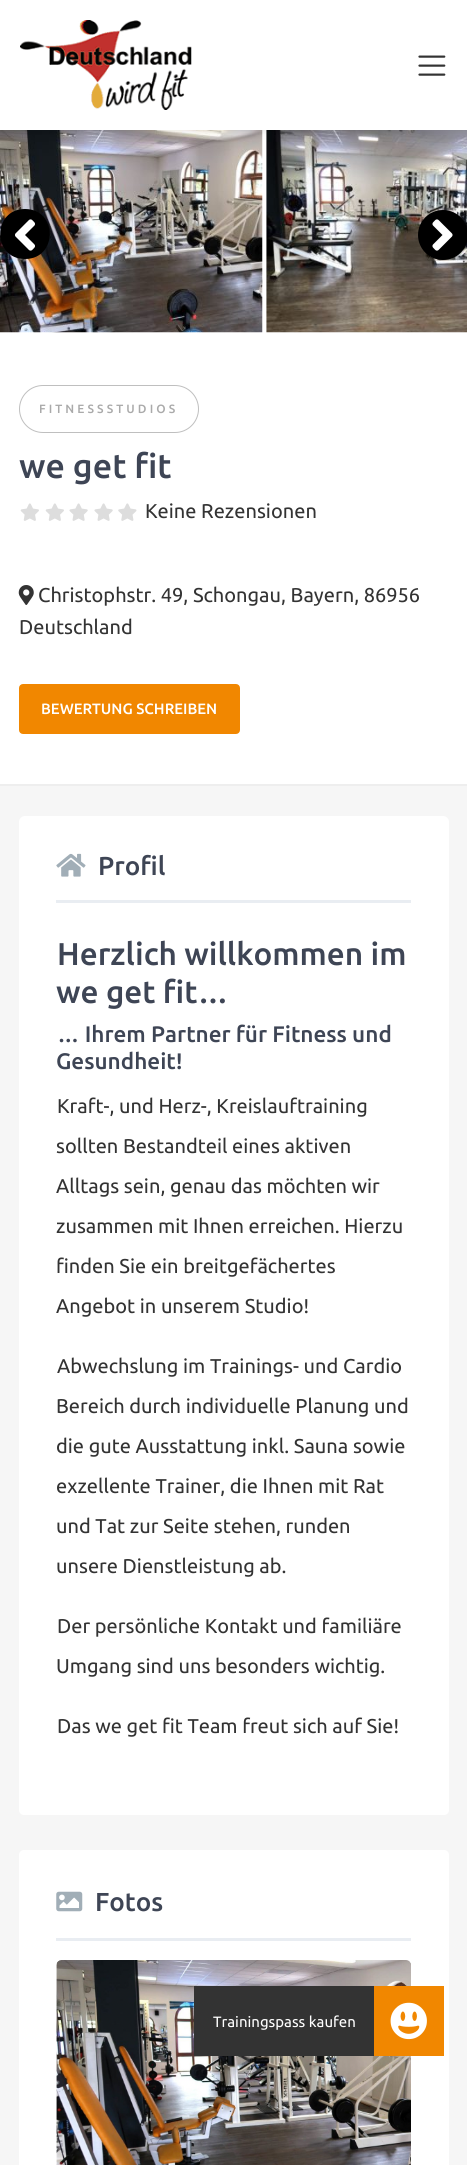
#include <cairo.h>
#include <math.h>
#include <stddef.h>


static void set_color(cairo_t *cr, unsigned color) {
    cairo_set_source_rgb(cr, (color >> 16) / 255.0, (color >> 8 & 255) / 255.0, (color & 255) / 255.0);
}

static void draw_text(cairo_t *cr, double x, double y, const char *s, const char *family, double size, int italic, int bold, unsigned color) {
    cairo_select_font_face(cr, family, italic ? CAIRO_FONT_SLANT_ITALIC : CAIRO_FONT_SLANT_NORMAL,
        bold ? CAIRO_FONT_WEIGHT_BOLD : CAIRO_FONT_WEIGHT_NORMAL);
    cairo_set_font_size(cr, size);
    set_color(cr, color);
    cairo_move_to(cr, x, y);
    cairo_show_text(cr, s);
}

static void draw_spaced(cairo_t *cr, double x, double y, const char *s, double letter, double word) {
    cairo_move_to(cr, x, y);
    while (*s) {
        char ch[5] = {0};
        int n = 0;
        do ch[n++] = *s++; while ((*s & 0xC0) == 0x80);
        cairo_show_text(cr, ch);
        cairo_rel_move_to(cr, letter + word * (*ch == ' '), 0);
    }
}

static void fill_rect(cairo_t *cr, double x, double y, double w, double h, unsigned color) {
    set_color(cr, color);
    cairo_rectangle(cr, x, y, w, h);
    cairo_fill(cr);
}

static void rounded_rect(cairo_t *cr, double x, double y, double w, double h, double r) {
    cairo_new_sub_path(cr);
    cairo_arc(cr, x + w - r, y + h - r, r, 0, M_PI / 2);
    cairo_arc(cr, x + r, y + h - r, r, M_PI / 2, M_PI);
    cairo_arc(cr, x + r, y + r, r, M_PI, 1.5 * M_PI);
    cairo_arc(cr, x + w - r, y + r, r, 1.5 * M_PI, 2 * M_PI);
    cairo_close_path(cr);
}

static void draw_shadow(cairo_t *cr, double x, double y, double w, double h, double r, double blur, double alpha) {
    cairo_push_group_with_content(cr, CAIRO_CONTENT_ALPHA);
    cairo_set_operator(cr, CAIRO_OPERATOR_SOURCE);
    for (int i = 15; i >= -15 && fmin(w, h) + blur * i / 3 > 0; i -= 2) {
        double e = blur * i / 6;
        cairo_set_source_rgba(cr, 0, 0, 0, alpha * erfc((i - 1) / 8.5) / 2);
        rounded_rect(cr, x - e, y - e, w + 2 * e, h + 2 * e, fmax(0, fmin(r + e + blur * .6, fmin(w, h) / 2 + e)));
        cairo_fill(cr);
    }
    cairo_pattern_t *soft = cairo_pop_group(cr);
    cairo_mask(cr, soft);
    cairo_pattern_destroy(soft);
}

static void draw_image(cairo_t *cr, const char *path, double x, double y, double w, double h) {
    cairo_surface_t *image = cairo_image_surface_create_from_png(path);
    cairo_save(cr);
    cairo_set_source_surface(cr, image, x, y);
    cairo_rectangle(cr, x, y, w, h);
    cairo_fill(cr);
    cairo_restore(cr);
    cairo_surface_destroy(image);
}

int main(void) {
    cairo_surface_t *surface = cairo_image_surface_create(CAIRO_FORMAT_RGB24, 467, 2165);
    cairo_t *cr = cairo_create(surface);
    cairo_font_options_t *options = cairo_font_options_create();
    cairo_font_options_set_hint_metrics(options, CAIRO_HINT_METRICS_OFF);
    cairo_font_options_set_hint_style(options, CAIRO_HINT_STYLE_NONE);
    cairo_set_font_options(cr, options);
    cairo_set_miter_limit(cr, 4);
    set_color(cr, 0xF6F6F6);
    cairo_paint(cr);
    fill_rect(cr, 0, 130, 467, 654, 0xFFFFFF);
    draw_image(cr, "assets/img3.png", 0, 130, 263, 203);
    draw_image(cr, "assets/img4.png", 266, 130, 201, 203);
    set_color(cr, 0x000000);
    draw_shadow(cr, 0, 0, 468, 130, 0, 5, 0.12);
    fill_rect(cr, 0, 0, 467, 130, 0xFFFFFF);
    draw_image(cr, "assets/img1.png", 20, 20, 172, 90);
    draw_image(cr, "assets/img2.png", 418, 55, 28, 21);
    fill_rect(cr, 0, 784, 467, 2, 0xEEEEEE);
    set_color(cr, 0x000000);
    cairo_new_path(cr);
    cairo_move_to(cr, 25, 209);
    cairo_curve_to(cr, -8, 209, -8, 259, 25, 259);
    cairo_curve_to(cr, 58, 259, 58, 209, 25, 209);
    cairo_close_path(cr);
    cairo_fill(cr);
    draw_image(cr, "assets/img5.png", 15, 219, 20, 32);
    cairo_arc(cr, 443, 235, 25, 0, 2 * M_PI);
    cairo_fill(cr);
    draw_image(cr, "assets/img6.png", 432, 219, 21, 32);
    rounded_rect(cr, 19.5, 385.5, 179, 47, 23.5);
    set_color(cr, 0xBFBFBF);
    cairo_set_line_width(cr, 1);
    cairo_stroke(cr);
    cairo_select_font_face(cr, "Ubuntu Medium", CAIRO_FONT_SLANT_NORMAL, CAIRO_FONT_WEIGHT_NORMAL);
    cairo_set_font_size(cr, 12);
    set_color(cr, 0xAAAAAA);
    draw_spaced(cr, 39, 413, "FITNESSSTUDIOS", 3.1, 0);
    draw_text(cr, 19, 478, "we get fit", "Ubuntu Medium", 34, 0, 0, 0x3E4555);
    draw_image(cr, "assets/img7.png", 20, 503, 19, 18);
    draw_image(cr, "assets/img7.png", 45, 503, 19, 18);
    draw_image(cr, "assets/img8.png", 69, 503, 19, 18);
    draw_image(cr, "assets/img8.png", 94, 503, 19, 18);
    draw_image(cr, "assets/img9.png", 118, 503, 19, 18);
    draw_text(cr, 145, 518, "Keine Rezensionen", "Ubuntu", 20, 0, 0, 0x333333);
    draw_image(cr, "assets/img10.png", 18, 585, 16, 20);
    draw_text(cr, 38, 602, "Christophstr. 49, Schongau, Bayern, 86956", "Ubuntu", 20, 0, 0, 0x333333);
    draw_text(cr, 19, 634, "Deutschland", "Ubuntu", 20, 0, 0, 0x333333);
    set_color(cr, 0xF18700);
    rounded_rect(cr, 20.5, 685.5, 218, 47, 2.5);
    cairo_fill_preserve(cr);
    cairo_set_line_width(cr, 3);
    cairo_stroke(cr);
    draw_text(cr, 41, 714, "BEWERTUNG SCHREIBEN", "Ubuntu Medium", 15, 0, 0, 0xFFFFFF);
    cairo_save(cr);
    rounded_rect(cr, 19, 816, 430, 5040, 6);
    cairo_clip(cr);
    rounded_rect(cr, 19, 814, 430, 1001, 5);
    cairo_fill(cr);
    cairo_restore(cr);
    fill_rect(cr, 56, 900, 355, 3, 0xE9EDF2);
    draw_image(cr, "assets/img11.png", 56, 853, 30, 24);
    draw_text(cr, 98, 875, "Profil", "Ubuntu Medium", 26, 0, 0, 0x3E4555);
    draw_text(cr, 57, 965, "Herzlich willkommen im", "Ubuntu Medium", 31.5, 0, 0, 0x3E4555);
    draw_text(cr, 56, 1003, "we get fit…", "Ubuntu Medium", 31.5, 0, 0, 0x3E4555);
    draw_text(cr, 57, 1042, "… Ihrem Partner für Fitness und", "Ubuntu Medium", 22.5, 0, 0, 0x3E4555);
    draw_text(cr, 56, 1069, "Gesundheit!", "Ubuntu Medium", 22.5, 0, 0, 0x3E4555);
    draw_text(cr, 57, 1113, "Kraft-, und Herz-, Kreislauftraining", "Ubuntu", 20, 0, 0, 0x333333);
    draw_text(cr, 56, 1153, "sollten Bestandteil eines aktiven", "Ubuntu", 20, 0, 0, 0x333333);
    draw_text(cr, 56, 1193, "Alltags sein, genau das möchten wir", "Ubuntu", 20, 0, 0, 0x333333);
    draw_text(cr, 56, 1233, "zusammen mit Ihnen erreichen. Hierzu", "Ubuntu", 20, 0, 0, 0x333333);
    draw_text(cr, 56, 1273, "finden Sie ein breitgefächertes", "Ubuntu", 20, 0, 0, 0x333333);
    draw_text(cr, 56, 1313, "Angebot in unserem Studio!", "Ubuntu", 20, 0, 0, 0x333333);
    draw_text(cr, 57, 1373, "Abwechslung im Trainings- und Cardio", "Ubuntu", 20, 0, 0, 0x333333);
    draw_text(cr, 56, 1413, "Bereich durch individuelle Planung und", "Ubuntu", 20, 0, 0, 0x333333);
    draw_text(cr, 56, 1453, "die gute Ausstattung inkl. Sauna sowie", "Ubuntu", 20, 0, 0, 0x333333);
    draw_text(cr, 56, 1493, "exzellente Trainer, die Ihnen mit Rat", "Ubuntu", 20, 0, 0, 0x333333);
    draw_text(cr, 56, 1533, "und Tat zur Seite stehen, runden", "Ubuntu", 20, 0, 0, 0x333333);
    draw_text(cr, 56, 1573, "unsere Dienstleistung ab.", "Ubuntu", 20, 0, 0, 0x333333);
    draw_text(cr, 57, 1633, "Der persönliche Kontakt und familiäre", "Ubuntu", 20, 0, 0, 0x333333);
    draw_text(cr, 56, 1673, "Umgang sind uns besonders wichtig.", "Ubuntu", 20, 0, 0, 0x333333);
    draw_text(cr, 57, 1733, "Das we get fit Team freut sich auf Sie!", "Ubuntu", 20, 0, 0, 0x333333);
    set_color(cr, 0xFFFFFF);
    rounded_rect(cr, 19, 1850, 430, 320, 5);
    cairo_fill(cr);
    fill_rect(cr, 56, 1938, 355, 3, 0xE9EDF2);
    draw_image(cr, "assets/img12.png", 56, 1891, 27, 21);
    draw_text(cr, 95, 1911, "Fotos", "Ubuntu Medium", 26, 0, 0, 0x3E4555);
    draw_image(cr, "assets/img13.png", 56, 1960, 355, 205);
    fill_rect(cr, 374, 1986, 70, 70, 0xF18700);
    fill_rect(cr, 194, 1986, 180, 70, 0x333333);
    draw_text(cr, 213, 2027, "Trainingspass kaufen", "Ubuntu", 15, 0, 0, 0xFFFFFF);
    draw_image(cr, "assets/img14.png", 390, 2002, 37, 38);
    cairo_surface_write_to_png(surface, "output.png");
    cairo_font_options_destroy(options);
    cairo_destroy(cr);
    cairo_surface_destroy(surface);
    return 0;
}
